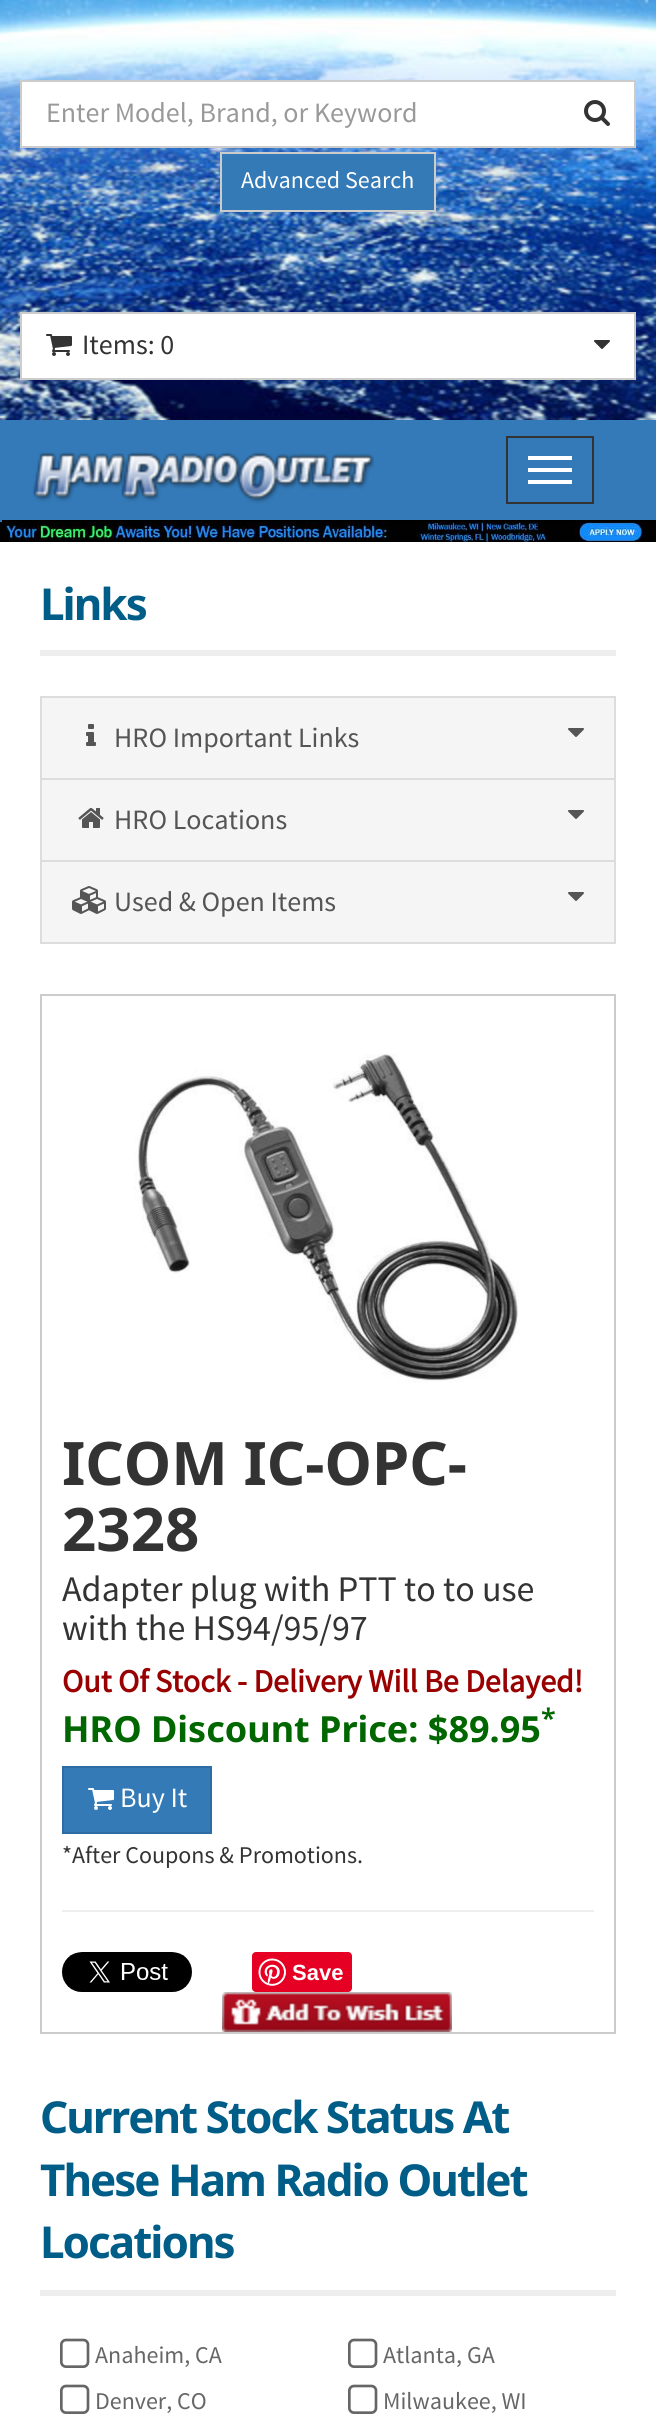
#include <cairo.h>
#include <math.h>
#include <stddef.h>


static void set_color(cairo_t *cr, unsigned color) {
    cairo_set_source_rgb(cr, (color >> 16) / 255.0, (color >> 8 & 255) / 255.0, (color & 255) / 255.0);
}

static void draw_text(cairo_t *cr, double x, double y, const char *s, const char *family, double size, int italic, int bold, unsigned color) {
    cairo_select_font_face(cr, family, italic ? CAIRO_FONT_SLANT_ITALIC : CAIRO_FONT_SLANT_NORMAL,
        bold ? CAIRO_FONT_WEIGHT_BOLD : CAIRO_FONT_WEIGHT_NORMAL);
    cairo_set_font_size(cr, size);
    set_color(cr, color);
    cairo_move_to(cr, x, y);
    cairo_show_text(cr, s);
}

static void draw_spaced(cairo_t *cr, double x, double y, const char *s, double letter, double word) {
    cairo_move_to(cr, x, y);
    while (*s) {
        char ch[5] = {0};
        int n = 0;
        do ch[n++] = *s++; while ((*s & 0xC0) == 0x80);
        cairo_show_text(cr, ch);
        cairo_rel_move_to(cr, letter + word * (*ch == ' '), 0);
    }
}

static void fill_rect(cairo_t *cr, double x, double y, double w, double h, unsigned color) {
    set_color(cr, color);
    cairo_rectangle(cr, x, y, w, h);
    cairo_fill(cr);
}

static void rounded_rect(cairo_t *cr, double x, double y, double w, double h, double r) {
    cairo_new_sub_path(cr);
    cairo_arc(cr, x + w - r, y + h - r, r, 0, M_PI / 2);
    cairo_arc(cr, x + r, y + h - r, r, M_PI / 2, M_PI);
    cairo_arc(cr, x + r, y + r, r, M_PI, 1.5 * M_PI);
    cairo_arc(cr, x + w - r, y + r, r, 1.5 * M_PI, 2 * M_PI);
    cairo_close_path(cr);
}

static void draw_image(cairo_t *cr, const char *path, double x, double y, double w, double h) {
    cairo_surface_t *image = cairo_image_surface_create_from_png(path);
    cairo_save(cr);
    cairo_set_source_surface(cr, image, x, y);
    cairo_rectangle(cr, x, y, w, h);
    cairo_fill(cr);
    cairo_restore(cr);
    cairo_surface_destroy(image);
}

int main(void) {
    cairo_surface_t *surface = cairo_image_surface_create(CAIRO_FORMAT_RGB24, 656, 2423);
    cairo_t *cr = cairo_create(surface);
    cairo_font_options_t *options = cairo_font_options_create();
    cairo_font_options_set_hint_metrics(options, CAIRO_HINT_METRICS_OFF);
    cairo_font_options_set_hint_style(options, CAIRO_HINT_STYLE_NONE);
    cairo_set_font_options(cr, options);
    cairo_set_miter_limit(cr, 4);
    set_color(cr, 0xFFFFFF);
    cairo_paint(cr);
    draw_image(cr, "assets/img1.png", 0, 0, 656, 420);
    set_color(cr, 0xFFFFFF);
    cairo_rectangle(cr, 21, 81, 540, 66);
    cairo_fill_preserve(cr);
    set_color(cr, 0xCCCCCC);
    cairo_stroke(cr);
    draw_text(cr, 46, 122, "Enter Model, Brand, or Keyword", "Source Sans Pro", 28, 0, 0, 0x999999);
    fill_rect(cr, 560, 82, 74, 64, 0xFFFFFF);
    fill_rect(cr, 560, 80, 76, 2, 0xCCCCCC);
    fill_rect(cr, 634, 80, 2, 68, 0xCCCCCC);
    fill_rect(cr, 560, 146, 76, 2, 0xCCCCCC);
    draw_image(cr, "assets/img2.png", 584, 100, 26, 26);
    set_color(cr, 0x337AB7);
    cairo_rectangle(cr, 221, 153, 214, 58);
    cairo_fill_preserve(cr);
    set_color(cr, 0xCCCCCC);
    cairo_stroke(cr);
    draw_text(cr, 241, 188, "Advanced Search", "Source Sans Pro", 24, 0, 0, 0xFFFFFF);
    cairo_rectangle(cr, 21, 313, 614, 66);
    cairo_fill_preserve(cr);
    set_color(cr, 0xCCCCCC);
    cairo_stroke(cr);
    draw_image(cr, "assets/img3.png", 46, 334, 26, 22);
    draw_text(cr, 82, 354, "Items: 0", "Source Sans Pro", 28, 0, 0, 0x333333);
    draw_image(cr, "assets/img4.png", 594, 340, 16, 9);
    fill_rect(cr, 2, 420, 654, 100, 0x347AB8);
    fill_rect(cr, 0, 520, 656, 2, 0x000000);
    fill_rect(cr, 0, 420, 2, 102, 0x347AB8);
    draw_image(cr, "assets/img5.png", 32, 452, 342, 52);
    cairo_rectangle(cr, 507, 437, 86, 66);
    set_color(cr, 0x333333);
    cairo_stroke(cr);
    fill_rect(cr, 528, 456, 44, 4, 0xFFFFFF);
    fill_rect(cr, 528, 468, 44, 4, 0xFFFFFF);
    fill_rect(cr, 528, 480, 44, 4, 0xFFFFFF);
    draw_image(cr, "assets/img6.png", 0, 522, 656, 20);
    fill_rect(cr, 40, 650, 576, 6, 0xEEEEEE);
    cairo_select_font_face(cr, "Noto Sans", CAIRO_FONT_SLANT_NORMAL, CAIRO_FONT_WEIGHT_BOLD);
    cairo_set_font_size(cr, 44);
    set_color(cr, 0x005D87);
    draw_spaced(cr, 40, 620, "Links", -2, 0);
    set_color(cr, 0xF5F5F5);
    cairo_rectangle(cr, 41, 697, 574, 82);
    cairo_fill_preserve(cr);
    set_color(cr, 0xDDDDDD);
    cairo_stroke(cr);
    draw_image(cr, "assets/img7.png", 86, 724, 10, 22);
    draw_text(cr, 114, 747, "HRO Important Links", "Source Sans Pro", 28, 0, 0, 0x555555);
    draw_image(cr, "assets/img8.png", 568, 728, 16, 9);
    set_color(cr, 0xF5F5F5);
    cairo_rectangle(cr, 41, 779, 574, 82);
    cairo_fill_preserve(cr);
    set_color(cr, 0xDDDDDD);
    cairo_stroke(cr);
    draw_image(cr, "assets/img9.png", 78, 808, 26, 20);
    draw_text(cr, 114, 829, "HRO Locations", "Source Sans Pro", 28, 0, 0, 0x555555);
    draw_image(cr, "assets/img8.png", 568, 810, 16, 9);
    set_color(cr, 0xF5F5F5);
    cairo_rectangle(cr, 41, 861, 574, 82);
    cairo_fill_preserve(cr);
    set_color(cr, 0xDDDDDD);
    cairo_stroke(cr);
    draw_image(cr, "assets/img10.png", 72, 886, 34, 28);
    draw_text(cr, 114, 911, "Used & Open Items", "Source Sans Pro", 28, 0, 0, 0x555555);
    draw_image(cr, "assets/img8.png", 568, 892, 16, 9);
    cairo_rectangle(cr, 41, 995, 574, 1038);
    set_color(cr, 0xCCCCCC);
    cairo_stroke(cr);
    draw_image(cr, "assets/img11.png", 134, 1053, 385, 330);
    draw_text(cr, 62, 1485, "ICOM IC-OPC-", "Noto Sans", 60, 0, 1, 0x333333);
    draw_text(cr, 62, 1551, "2328", "Noto Sans", 60, 0, 1, 0x333333);
    draw_text(cr, 62, 1601, "Adapter plug with PTT to to use", "Source Sans Pro", 36, 0, 0, 0x333333);
    draw_text(cr, 62, 1640, "with the HS94/95/97", "Source Sans Pro", 36, 0, 0, 0x333333);
    draw_text(cr, 62, 1692, "Out Of Stock - Delivery Will Be Delayed!", "Source Sans Pro", 32, 0, 1, 0x990000);
    draw_text(cr, 62, 1742, "HRO Discount Price: $89.95", "Noto Sans", 36, 0, 1, 0x006600);
    draw_text(cr, 541, 1728, "*", "Noto Sans SemiBold", 27, 0, 0, 0x006600);
    set_color(cr, 0x337AB7);
    cairo_rectangle(cr, 63, 1767, 148, 66);
    cairo_fill_preserve(cr);
    set_color(cr, 0x2E6DA4);
    cairo_stroke(cr);
    draw_image(cr, "assets/img12.png", 88, 1788, 26, 22);
    draw_text(cr, 120, 1807, "Buy It", "Source Sans Pro", 28, 0, 0, 0xFFFFFF);
    draw_text(cr, 62, 1863, "*After Coupons & Promotions.", "Source Sans Pro", 24, 0, 0, 0x333333);
    fill_rect(cr, 62, 1910, 532, 2, 0xEEEEEE);
    draw_image(cr, "assets/img13.png", 62, 1952, 130, 40);
    set_color(cr, 0xE60023);
    rounded_rect(cr, 252, 1952, 100, 40, 4);
    cairo_fill(cr);
    draw_image(cr, "assets/img14.png", 258, 1958, 28, 28);
    draw_text(cr, 292, 1980, "Save", "Liberation Sans", 22, 0, 1, 0xFFFFFF);
    draw_image(cr, "assets/img15.png", 222, 1992, 230, 40);
    fill_rect(cr, 40, 2290, 576, 6, 0xEEEEEE);
    cairo_select_font_face(cr, "Noto Sans", CAIRO_FONT_SLANT_NORMAL, CAIRO_FONT_WEIGHT_BOLD);
    cairo_set_font_size(cr, 44);
    set_color(cr, 0x005D87);
    draw_spaced(cr, 40, 2133, "Current Stock Status At", -2, 0);
    draw_spaced(cr, 40, 2196, "These Ham Radio Outlet", -2, 0);
    draw_spaced(cr, 40, 2258, "Locations", -2, 0);
    draw_image(cr, "assets/img16.png", 60, 2338, 30, 30);
    draw_text(cr, 95, 2363, "Anaheim, CA", "Source Sans Pro", 24, 0, 0, 0x666666);
    draw_image(cr, "assets/img16.png", 348, 2338, 30, 30);
    draw_text(cr, 383, 2363, "Atlanta, GA", "Source Sans Pro", 24, 0, 0, 0x666666);
    draw_image(cr, "assets/img16.png", 60, 2384, 30, 30);
    draw_text(cr, 95, 2409, "Denver, CO", "Source Sans Pro", 24, 0, 0, 0x666666);
    draw_image(cr, "assets/img16.png", 348, 2384, 30, 30);
    draw_text(cr, 383, 2409, "Milwaukee, WI", "Source Sans Pro", 24, 0, 0, 0x666666);
    cairo_surface_write_to_png(surface, "output.png");
    cairo_font_options_destroy(options);
    cairo_destroy(cr);
    cairo_surface_destroy(surface);
    return 0;
}
